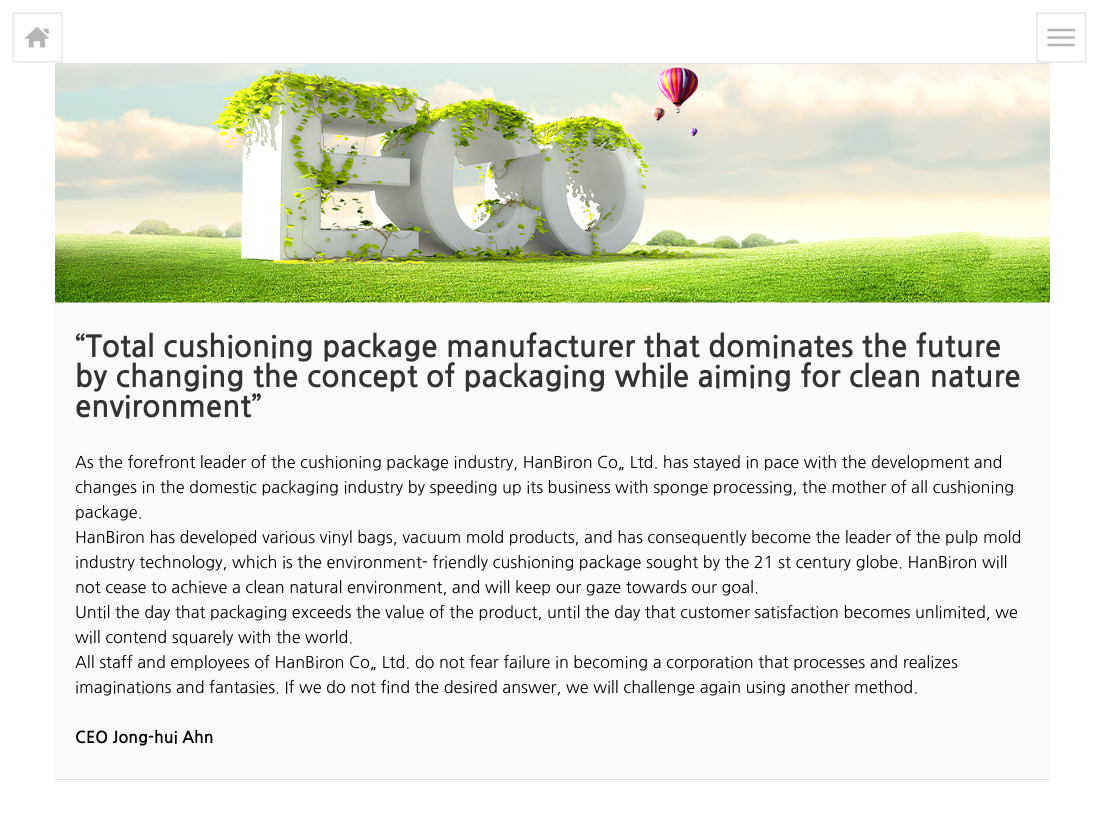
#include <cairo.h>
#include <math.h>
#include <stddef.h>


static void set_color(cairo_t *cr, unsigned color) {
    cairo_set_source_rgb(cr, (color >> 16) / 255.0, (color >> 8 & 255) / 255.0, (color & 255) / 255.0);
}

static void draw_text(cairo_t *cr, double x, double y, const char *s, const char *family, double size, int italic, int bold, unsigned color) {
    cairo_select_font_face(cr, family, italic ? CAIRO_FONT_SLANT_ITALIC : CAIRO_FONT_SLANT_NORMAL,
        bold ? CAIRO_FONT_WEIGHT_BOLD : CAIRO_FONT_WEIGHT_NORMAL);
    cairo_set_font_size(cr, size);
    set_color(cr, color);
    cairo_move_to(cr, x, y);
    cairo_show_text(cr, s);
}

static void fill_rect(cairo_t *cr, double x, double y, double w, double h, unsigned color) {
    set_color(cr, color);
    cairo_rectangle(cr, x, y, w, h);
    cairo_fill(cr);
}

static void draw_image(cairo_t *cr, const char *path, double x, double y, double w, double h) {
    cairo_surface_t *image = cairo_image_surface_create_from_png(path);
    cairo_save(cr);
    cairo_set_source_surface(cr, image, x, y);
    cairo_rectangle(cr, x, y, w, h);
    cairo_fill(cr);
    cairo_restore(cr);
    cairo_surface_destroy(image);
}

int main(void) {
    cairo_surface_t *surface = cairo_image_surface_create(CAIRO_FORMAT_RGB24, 1104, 830);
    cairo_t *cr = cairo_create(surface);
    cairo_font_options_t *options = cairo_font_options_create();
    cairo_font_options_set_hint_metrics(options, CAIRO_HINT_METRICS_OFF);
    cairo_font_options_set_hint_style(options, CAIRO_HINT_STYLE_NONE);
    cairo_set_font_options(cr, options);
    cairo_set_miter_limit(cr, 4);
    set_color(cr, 0xFFFFFF);
    cairo_paint(cr);
    draw_image(cr, "assets/img1.png", 12, 12, 51, 51);
    draw_image(cr, "assets/img2.png", 1036, 12, 51, 51);
    fill_rect(cr, 55, 302, 995, 477, 0xFAFAFA);
    fill_rect(cr, 55, 63, 995, 1, 0xE1E1E1);
    draw_image(cr, "assets/img3.png", 55, 63, 995, 240);
    draw_text(cr, 75, 357, "“Total cushioning package manufacturer that dominates the future", "NanumGothic", 30, 0, 1, 0x333333);
    draw_text(cr, 75, 387, "by changing the concept of packaging while aiming for clean nature", "NanumGothic", 30, 0, 1, 0x333333);
    draw_text(cr, 75, 417, "environment”", "NanumGothic", 30, 0, 1, 0x333333);
    draw_text(cr, 75, 468, "As the forefront leader of the cushioning package industry, HanBiron Co„ Ltd. has stayed in pace with the development and", "NanumGothic", 16.25, 0, 0, 0x000000);
    draw_text(cr, 75, 493, "changes in the domestic packaging industry by speeding up its business with sponge processing, the mother of all cushioning", "NanumGothic", 16.25, 0, 0, 0x000000);
    draw_text(cr, 75, 518, "package.", "NanumGothic", 16.25, 0, 0, 0x000000);
    draw_text(cr, 75, 543, "HanBiron has developed various vinyl bags, vacuum mold products, and has consequently become the leader of the pulp mold", "NanumGothic", 16.25, 0, 0, 0x000000);
    draw_text(cr, 75, 568, "industry technology, which is the environment- friendly cushioning package sought by the 21 st century globe. HanBiron will", "NanumGothic", 16.25, 0, 0, 0x000000);
    draw_text(cr, 75, 593, "not cease to achieve a clean natural environment, and will keep our gaze towards our goal.", "NanumGothic", 16.25, 0, 0, 0x000000);
    draw_text(cr, 75, 618, "Until the day that packaging exceeds the value of the product, until the day that customer satisfaction becomes unlimited, we", "NanumGothic", 16.25, 0, 0, 0x000000);
    draw_text(cr, 75, 643, "will contend squarely with the world.", "NanumGothic", 16.25, 0, 0, 0x000000);
    draw_text(cr, 75, 668, "All staff and employees of HanBiron Co„ Ltd. do not fear failure in becoming a corporation that processes and realizes", "NanumGothic", 16.25, 0, 0, 0x000000);
    draw_text(cr, 75, 693, "imaginations and fantasies. If we do not find the desired answer, we will challenge again using another method.", "NanumGothic", 16.25, 0, 0, 0x000000);
    draw_text(cr, 75, 743, "CEO Jong-hui Ahn", "NanumGothic", 16.25, 0, 1, 0x000000);
    fill_rect(cr, 55, 779, 995, 1, 0xE1E1E1);
    cairo_surface_write_to_png(surface, "output.png");
    cairo_font_options_destroy(options);
    cairo_destroy(cr);
    cairo_surface_destroy(surface);
    return 0;
}
